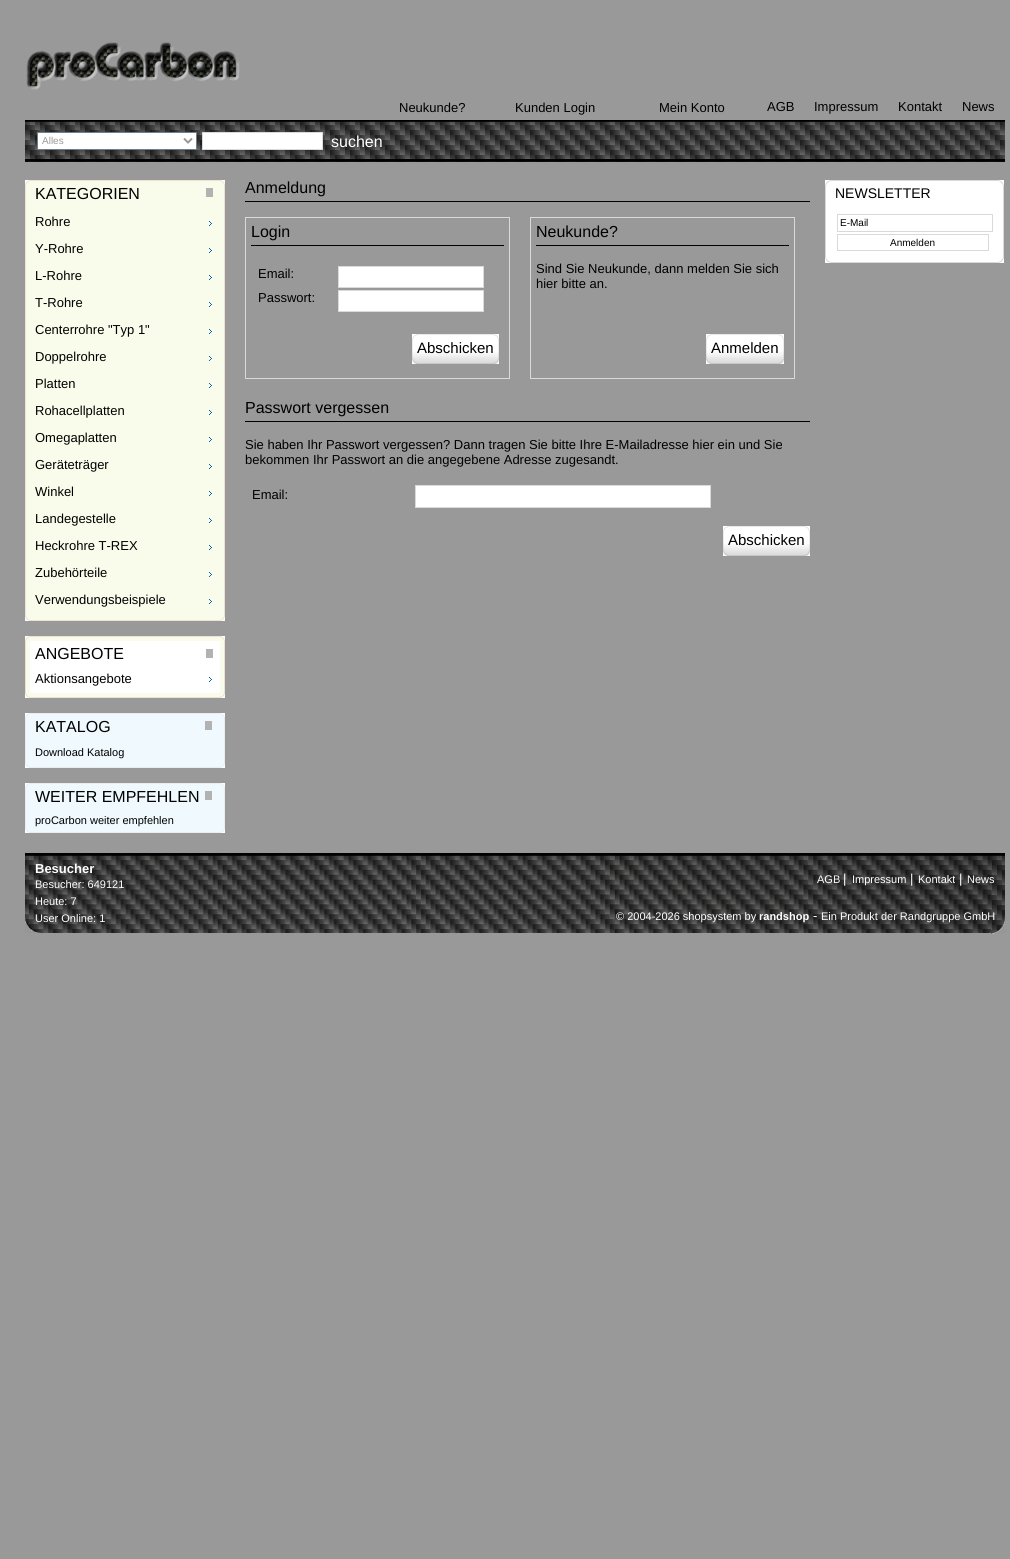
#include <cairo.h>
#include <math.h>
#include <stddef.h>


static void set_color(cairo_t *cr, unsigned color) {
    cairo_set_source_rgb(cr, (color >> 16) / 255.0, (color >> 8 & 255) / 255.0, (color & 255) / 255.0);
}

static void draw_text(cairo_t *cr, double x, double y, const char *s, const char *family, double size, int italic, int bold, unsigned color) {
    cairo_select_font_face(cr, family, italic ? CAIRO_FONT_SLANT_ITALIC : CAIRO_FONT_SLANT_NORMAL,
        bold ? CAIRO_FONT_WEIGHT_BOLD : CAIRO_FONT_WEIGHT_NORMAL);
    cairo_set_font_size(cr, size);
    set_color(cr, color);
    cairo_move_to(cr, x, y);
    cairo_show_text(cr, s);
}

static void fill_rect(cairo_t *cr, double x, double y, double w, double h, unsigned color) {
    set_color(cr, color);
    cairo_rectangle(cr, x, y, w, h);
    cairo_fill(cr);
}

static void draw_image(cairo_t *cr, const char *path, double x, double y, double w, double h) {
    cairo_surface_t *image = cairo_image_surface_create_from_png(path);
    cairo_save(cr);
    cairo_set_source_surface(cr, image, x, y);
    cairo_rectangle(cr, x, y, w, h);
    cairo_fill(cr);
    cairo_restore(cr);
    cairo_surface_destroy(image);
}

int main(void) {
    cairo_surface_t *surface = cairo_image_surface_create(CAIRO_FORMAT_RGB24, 1010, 1559);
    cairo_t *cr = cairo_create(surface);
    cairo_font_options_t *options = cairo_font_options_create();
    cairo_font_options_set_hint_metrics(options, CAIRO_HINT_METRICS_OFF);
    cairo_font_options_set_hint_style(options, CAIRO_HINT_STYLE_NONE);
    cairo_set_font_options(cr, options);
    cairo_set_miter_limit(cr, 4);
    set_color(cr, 0x999999);
    cairo_paint(cr);
    draw_image(cr, "assets/img1.png", 25, 120, 980, 42);
    draw_image(cr, "assets/img2.png", 25, 14, 215, 76);
    draw_text(cr, 399, 112, "Neukunde?", "Liberation Sans", 13, 0, 0, 0x000000);
    draw_text(cr, 515, 112, "Kunden Login", "Liberation Sans", 13, 0, 0, 0x000000);
    draw_text(cr, 659, 112, "Mein Konto", "Liberation Sans", 13, 0, 0, 0x000000);
    draw_text(cr, 767, 111, "AGB", "Liberation Sans", 13, 0, 0, 0x000000);
    draw_text(cr, 814, 111, "Impressum", "Liberation Sans", 13, 0, 0, 0x000000);
    draw_text(cr, 898, 111, "Kontakt", "Liberation Sans", 13, 0, 0, 0x000000);
    draw_text(cr, 962, 111, "News", "Liberation Sans", 13, 0, 0, 0x000000);
    set_color(cr, 0xFFFFFF);
    cairo_rectangle(cr, 37.5, 132.5, 159, 17);
    cairo_fill_preserve(cr);
    set_color(cr, 0x6D808F);
    cairo_set_line_width(cr, 1);
    cairo_stroke(cr);
    cairo_new_path(cr);
    cairo_move_to(cr, 184, 138.5);
    cairo_line_to(cr, 188, 142.5);
    cairo_line_to(cr, 192, 138.5);
    set_color(cr, 0x999999);
    cairo_set_line_width(cr, 2);
    cairo_stroke(cr);
    draw_text(cr, 42, 144, "Alles", "Liberation Sans", 10, 0, 0, 0x999999);
    set_color(cr, 0xFFFFFF);
    cairo_rectangle(cr, 202.5, 132.5, 120, 17);
    cairo_fill_preserve(cr);
    set_color(cr, 0xD7DBDD);
    cairo_set_line_width(cr, 1);
    cairo_stroke(cr);
    draw_text(cr, 331, 147, "suchen", "Liberation Sans", 16, 0, 0, 0xFFFFFF);
    draw_image(cr, "assets/img3.png", 25, 180, 200, 436);
    fill_rect(cr, 206, 188, 7, 9, 0xB2B2B2);
    draw_text(cr, 35, 199, "KATEGORIEN", "Liberation Sans", 16, 0, 0, 0x000000);
    draw_image(cr, "assets/img4.png", 209, 221, 3, 5);
    draw_text(cr, 35, 226, "Rohre", "Liberation Sans", 13, 0, 0, 0x000000);
    draw_image(cr, "assets/img4.png", 209, 248, 3, 5);
    draw_text(cr, 35, 253, "Y-Rohre", "Liberation Sans", 13, 0, 0, 0x000000);
    draw_image(cr, "assets/img4.png", 209, 275, 3, 5);
    draw_text(cr, 35, 280, "L-Rohre", "Liberation Sans", 13, 0, 0, 0x000000);
    draw_image(cr, "assets/img4.png", 209, 302, 3, 5);
    draw_text(cr, 35, 307, "T-Rohre", "Liberation Sans", 13, 0, 0, 0x000000);
    draw_image(cr, "assets/img4.png", 209, 329, 3, 5);
    draw_text(cr, 35, 334, "Centerrohre \"Typ 1\"", "Liberation Sans", 13, 0, 0, 0x000000);
    draw_image(cr, "assets/img4.png", 209, 356, 3, 5);
    draw_text(cr, 35, 361, "Doppelrohre", "Liberation Sans", 13, 0, 0, 0x000000);
    draw_image(cr, "assets/img4.png", 209, 383, 3, 5);
    draw_text(cr, 35, 388, "Platten", "Liberation Sans", 13, 0, 0, 0x000000);
    draw_image(cr, "assets/img4.png", 209, 410, 3, 5);
    draw_text(cr, 35, 415, "Rohacellplatten", "Liberation Sans", 13, 0, 0, 0x000000);
    draw_image(cr, "assets/img4.png", 209, 437, 3, 5);
    draw_text(cr, 35, 442, "Omegaplatten", "Liberation Sans", 13, 0, 0, 0x000000);
    draw_image(cr, "assets/img4.png", 209, 464, 3, 5);
    draw_text(cr, 35, 469, "Geräteträger", "Liberation Sans", 13, 0, 0, 0x000000);
    draw_image(cr, "assets/img4.png", 209, 491, 3, 5);
    draw_text(cr, 35, 496, "Winkel", "Liberation Sans", 13, 0, 0, 0x000000);
    draw_image(cr, "assets/img4.png", 209, 518, 3, 5);
    draw_text(cr, 35, 523, "Landegestelle", "Liberation Sans", 13, 0, 0, 0x000000);
    draw_image(cr, "assets/img4.png", 209, 545, 3, 5);
    draw_text(cr, 35, 550, "Heckrohre T-REX", "Liberation Sans", 13, 0, 0, 0x000000);
    draw_image(cr, "assets/img4.png", 209, 572, 3, 5);
    draw_text(cr, 35, 577, "Zubehörteile", "Liberation Sans", 13, 0, 0, 0x000000);
    draw_image(cr, "assets/img4.png", 209, 599, 3, 5);
    draw_text(cr, 35, 604, "Verwendungsbeispiele", "Liberation Sans", 13, 0, 0, 0x000000);
    draw_image(cr, "assets/img5.png", 25, 616, 200, 5);
    draw_image(cr, "assets/img6.png", 25, 636, 200, 57);
    fill_rect(cr, 206, 649, 7, 9, 0xB2B2B2);
    draw_text(cr, 35, 659, "ANGEBOTE", "Liberation Sans", 16, 0, 0, 0x000000);
    draw_image(cr, "assets/img7.png", 209, 677, 3, 5);
    draw_text(cr, 35, 683, "Aktionsangebote", "Liberation Sans", 13, 0, 0, 0x000000);
    draw_image(cr, "assets/img8.png", 25, 692, 200, 6);
    draw_image(cr, "assets/img9.png", 25, 713, 200, 51);
    fill_rect(cr, 205, 721, 7, 9, 0xB2B2B2);
    draw_text(cr, 35, 732, "KATALOG", "Liberation Sans", 16, 0, 0, 0x000000);
    draw_text(cr, 35, 756, "Download Katalog", "Liberation Sans", 11, 0, 0, 0x000000);
    draw_image(cr, "assets/img10.png", 25, 764, 200, 4);
    draw_image(cr, "assets/img11.png", 25, 783, 200, 46);
    fill_rect(cr, 205, 791, 7, 9, 0xB2B2B2);
    draw_text(cr, 35, 802, "WEITER EMPFEHLEN", "Liberation Sans", 16, 0, 0, 0x000000);
    draw_text(cr, 35, 824, "proCarbon weiter empfehlen", "Liberation Sans", 11, 0, 0, 0x000000);
    draw_image(cr, "assets/img10.png", 25, 829, 200, 4);
    fill_rect(cr, 245, 201, 565, 1, 0x000000);
    draw_text(cr, 245, 193, "Anmeldung", "Liberation Sans", 16, 0, 0, 0x000000);
    cairo_rectangle(cr, 245.5, 217.5, 264, 161);
    set_color(cr, 0xD6DADC);
    cairo_stroke(cr);
    fill_rect(cr, 251, 245, 253, 1, 0x000000);
    draw_text(cr, 251, 237, "Login", "Liberation Sans", 16, 0, 0, 0x000000);
    draw_text(cr, 258, 278, "Email:", "Liberation Sans", 13, 0, 0, 0x000000);
    set_color(cr, 0xFFFFFF);
    cairo_rectangle(cr, 338.5, 266.5, 145, 21);
    cairo_fill_preserve(cr);
    set_color(cr, 0xD7DBDD);
    cairo_stroke(cr);
    draw_text(cr, 258, 302, "Passwort:", "Liberation Sans", 13, 0, 0, 0x000000);
    set_color(cr, 0xFFFFFF);
    cairo_rectangle(cr, 338.5, 290.5, 145, 21);
    cairo_fill_preserve(cr);
    set_color(cr, 0xD7DBDD);
    cairo_stroke(cr);
    draw_image(cr, "assets/img12.png", 417, 334, 82, 30);
    draw_image(cr, "assets/img13.png", 412, 334, 5, 30);
    draw_text(cr, 417, 353, "Abschicken", "Liberation Sans", 15, 0, 0, 0x000000);
    cairo_rectangle(cr, 530.5, 217.5, 264, 161);
    set_color(cr, 0xD6DADC);
    cairo_stroke(cr);
    fill_rect(cr, 536, 245, 253, 1, 0x000000);
    draw_text(cr, 536, 237, "Neukunde?", "Liberation Sans", 16, 0, 0, 0x000000);
    draw_text(cr, 536, 273, "Sind Sie Neukunde, dann melden Sie sich", "Liberation Sans", 13, 0, 0, 0x000000);
    draw_text(cr, 536, 288, "hier bitte an.", "Liberation Sans", 13, 0, 0, 0x000000);
    draw_image(cr, "assets/img14.png", 711, 334, 73, 30);
    draw_image(cr, "assets/img13.png", 706, 334, 5, 30);
    draw_text(cr, 711, 353, "Anmelden", "Liberation Sans", 15, 0, 0, 0x000000);
    fill_rect(cr, 245, 421, 565, 1, 0x000000);
    draw_text(cr, 245, 413, "Passwort vergessen", "Liberation Sans", 16, 0, 0, 0x000000);
    draw_text(cr, 245, 449, "Sie haben Ihr Passwort vergessen? Dann tragen Sie bitte Ihre E-Mailadresse hier ein und Sie", "Liberation Sans", 13, 0, 0, 0x000000);
    draw_text(cr, 245, 464, "bekommen Ihr Passwort an die angegebene Adresse zugesandt.", "Liberation Sans", 13, 0, 0, 0x000000);
    draw_text(cr, 252, 499, "Email:", "Liberation Sans", 13, 0, 0, 0x000000);
    set_color(cr, 0xFFFFFF);
    cairo_rectangle(cr, 415.5, 485.5, 295, 22);
    cairo_fill_preserve(cr);
    set_color(cr, 0xD7DBDD);
    cairo_stroke(cr);
    draw_image(cr, "assets/img12.png", 728, 526, 82, 30);
    draw_image(cr, "assets/img13.png", 723, 526, 5, 30);
    draw_text(cr, 728, 545, "Abschicken", "Liberation Sans", 15, 0, 0, 0x000000);
    draw_image(cr, "assets/img15.png", 825, 180, 179, 77);
    draw_text(cr, 835, 198, "NEWSLETTER", "Liberation Sans", 14, 0, 0, 0x000000);
    cairo_rectangle(cr, 837.5, 214.5, 155, 17);
    set_color(cr, 0xD6DADC);
    cairo_stroke(cr);
    draw_text(cr, 840, 226, "E-Mail", "Liberation Sans", 10, 0, 0, 0x000000);
    cairo_rectangle(cr, 837.5, 234.5, 151, 16);
    set_color(cr, 0xD6DADC);
    cairo_stroke(cr);
    draw_text(cr, 890, 246, "Anmelden", "Liberation Sans", 10, 0, 0, 0x000000);
    draw_image(cr, "assets/img16.png", 825, 257, 179, 6);
    draw_image(cr, "assets/img17.png", 25, 853, 980, 80);
    draw_image(cr, "assets/img18.png", 991, 857, 14, 77);
    draw_text(cr, 35, 873, "Besucher", "Liberation Sans", 13, 0, 1, 0xFFFFFF);
    draw_text(cr, 35, 888, "Besucher: 649121", "Liberation Sans", 11, 0, 0, 0xFFFFFF);
    draw_text(cr, 35, 905, "Heute: 7", "Liberation Sans", 11, 0, 0, 0xFFFFFF);
    draw_text(cr, 35, 922, "User Online: 1", "Liberation Sans", 11, 0, 0, 0xFFFFFF);
    draw_text(cr, 817, 883, "AGB", "Liberation Sans", 11, 0, 0, 0xFFFFFF);
    draw_text(cr, 843, 883, "|", "Liberation Sans", 13, 0, 0, 0xFFFFFF);
    draw_text(cr, 852, 883, "Impressum", "Liberation Sans", 11, 0, 0, 0xFFFFFF);
    draw_text(cr, 910, 883, "|", "Liberation Sans", 13, 0, 0, 0xFFFFFF);
    draw_text(cr, 918, 883, "Kontakt", "Liberation Sans", 11, 0, 0, 0xFFFFFF);
    draw_text(cr, 959, 883, "|", "Liberation Sans", 13, 0, 0, 0xFFFFFF);
    draw_text(cr, 967, 883, "News", "Liberation Sans", 11, 0, 0, 0xFFFFFF);
    draw_text(cr, 616, 920, "© 2004-2026 shopsystem by", "Liberation Sans", 11, 0, 0, 0xFFFFFF);
    draw_text(cr, 759, 920, "randshop", "Liberation Sans", 11, 0, 1, 0xFFFFFF);
    draw_text(cr, 813, 920, "-", "Liberation Sans", 13, 0, 0, 0xFFFFFF);
    draw_text(cr, 821, 920, "Ein Produkt der Randgruppe GmbH", "Liberation Sans", 11, 0, 0, 0xFFFFFF);
    cairo_surface_write_to_png(surface, "output.png");
    cairo_font_options_destroy(options);
    cairo_destroy(cr);
    cairo_surface_destroy(surface);
    return 0;
}
